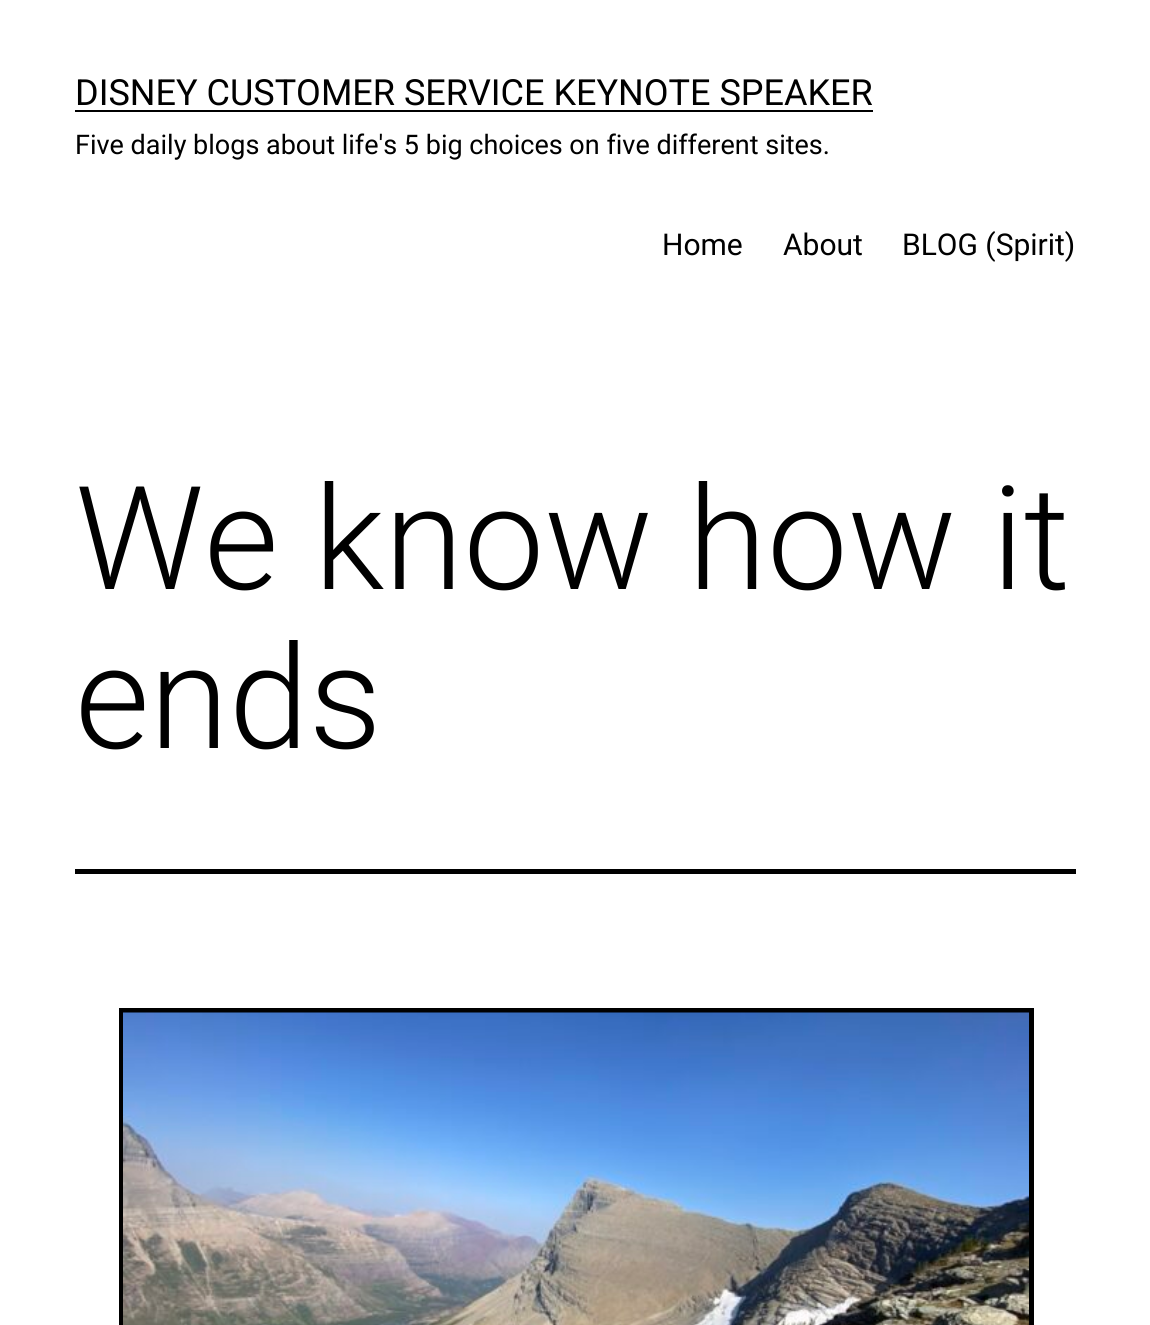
#include <cairo.h>
#include <math.h>
#include <stddef.h>


static void set_color(cairo_t *cr, unsigned color) {
    cairo_set_source_rgb(cr, (color >> 16) / 255.0, (color >> 8 & 255) / 255.0, (color & 255) / 255.0);
}

static void draw_text(cairo_t *cr, double x, double y, const char *s, const char *family, double size, int italic, int bold, unsigned color) {
    cairo_select_font_face(cr, family, italic ? CAIRO_FONT_SLANT_ITALIC : CAIRO_FONT_SLANT_NORMAL,
        bold ? CAIRO_FONT_WEIGHT_BOLD : CAIRO_FONT_WEIGHT_NORMAL);
    cairo_set_font_size(cr, size);
    set_color(cr, color);
    cairo_move_to(cr, x, y);
    cairo_show_text(cr, s);
}

static void fill_rect(cairo_t *cr, double x, double y, double w, double h, unsigned color) {
    set_color(cr, color);
    cairo_rectangle(cr, x, y, w, h);
    cairo_fill(cr);
}

static void draw_image(cairo_t *cr, const char *path, double x, double y, double w, double h) {
    cairo_surface_t *image = cairo_image_surface_create_from_png(path);
    cairo_save(cr);
    cairo_set_source_surface(cr, image, x, y);
    cairo_rectangle(cr, x, y, w, h);
    cairo_fill(cr);
    cairo_restore(cr);
    cairo_surface_destroy(image);
}

int main(void) {
    cairo_surface_t *surface = cairo_image_surface_create(CAIRO_FORMAT_RGB24, 1150, 1325);
    cairo_t *cr = cairo_create(surface);
    cairo_font_options_t *options = cairo_font_options_create();
    cairo_font_options_set_hint_metrics(options, CAIRO_HINT_METRICS_OFF);
    cairo_font_options_set_hint_style(options, CAIRO_HINT_STYLE_NONE);
    cairo_set_font_options(cr, options);
    cairo_set_miter_limit(cr, 4);
    set_color(cr, 0xFFFFFF);
    cairo_paint(cr);
    draw_text(cr, 75, 105, "DISNEY CUSTOMER SERVICE KEYNOTE SPEAKER", "Roboto", 36, 0, 0, 0x000000);
    fill_rect(cr, 75, 110, 798, 2, 0x000000);
    draw_text(cr, 75, 154, "Five daily blogs about life's 5 big choices on five different sites.", "Roboto", 27, 0, 0, 0x000000);
    draw_text(cr, 662, 255, "Home", "Roboto", 30, 0, 0, 0x000000);
    draw_text(cr, 783, 255, "About", "Roboto", 30, 0, 0, 0x000000);
    draw_text(cr, 902, 255, "BLOG (Spirit)", "Roboto", 30, 0, 0, 0x000000);
    fill_rect(cr, 75, 869, 1001, 5, 0x000000);
    draw_text(cr, 75, 589, "We know how it", "Roboto Light", 144, 0, 0, 0x000000);
    draw_text(cr, 75, 748, "ends", "Roboto Light", 144, 0, 0, 0x000000);
    cairo_rectangle(cr, 121.5, 1010.5, 910, 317);
    cairo_set_line_width(cr, 5);
    cairo_stroke(cr);
    draw_image(cr, "assets/img1.png", 123, 1012, 906, 313);
    cairo_surface_write_to_png(surface, "output.png");
    cairo_font_options_destroy(options);
    cairo_destroy(cr);
    cairo_surface_destroy(surface);
    return 0;
}
